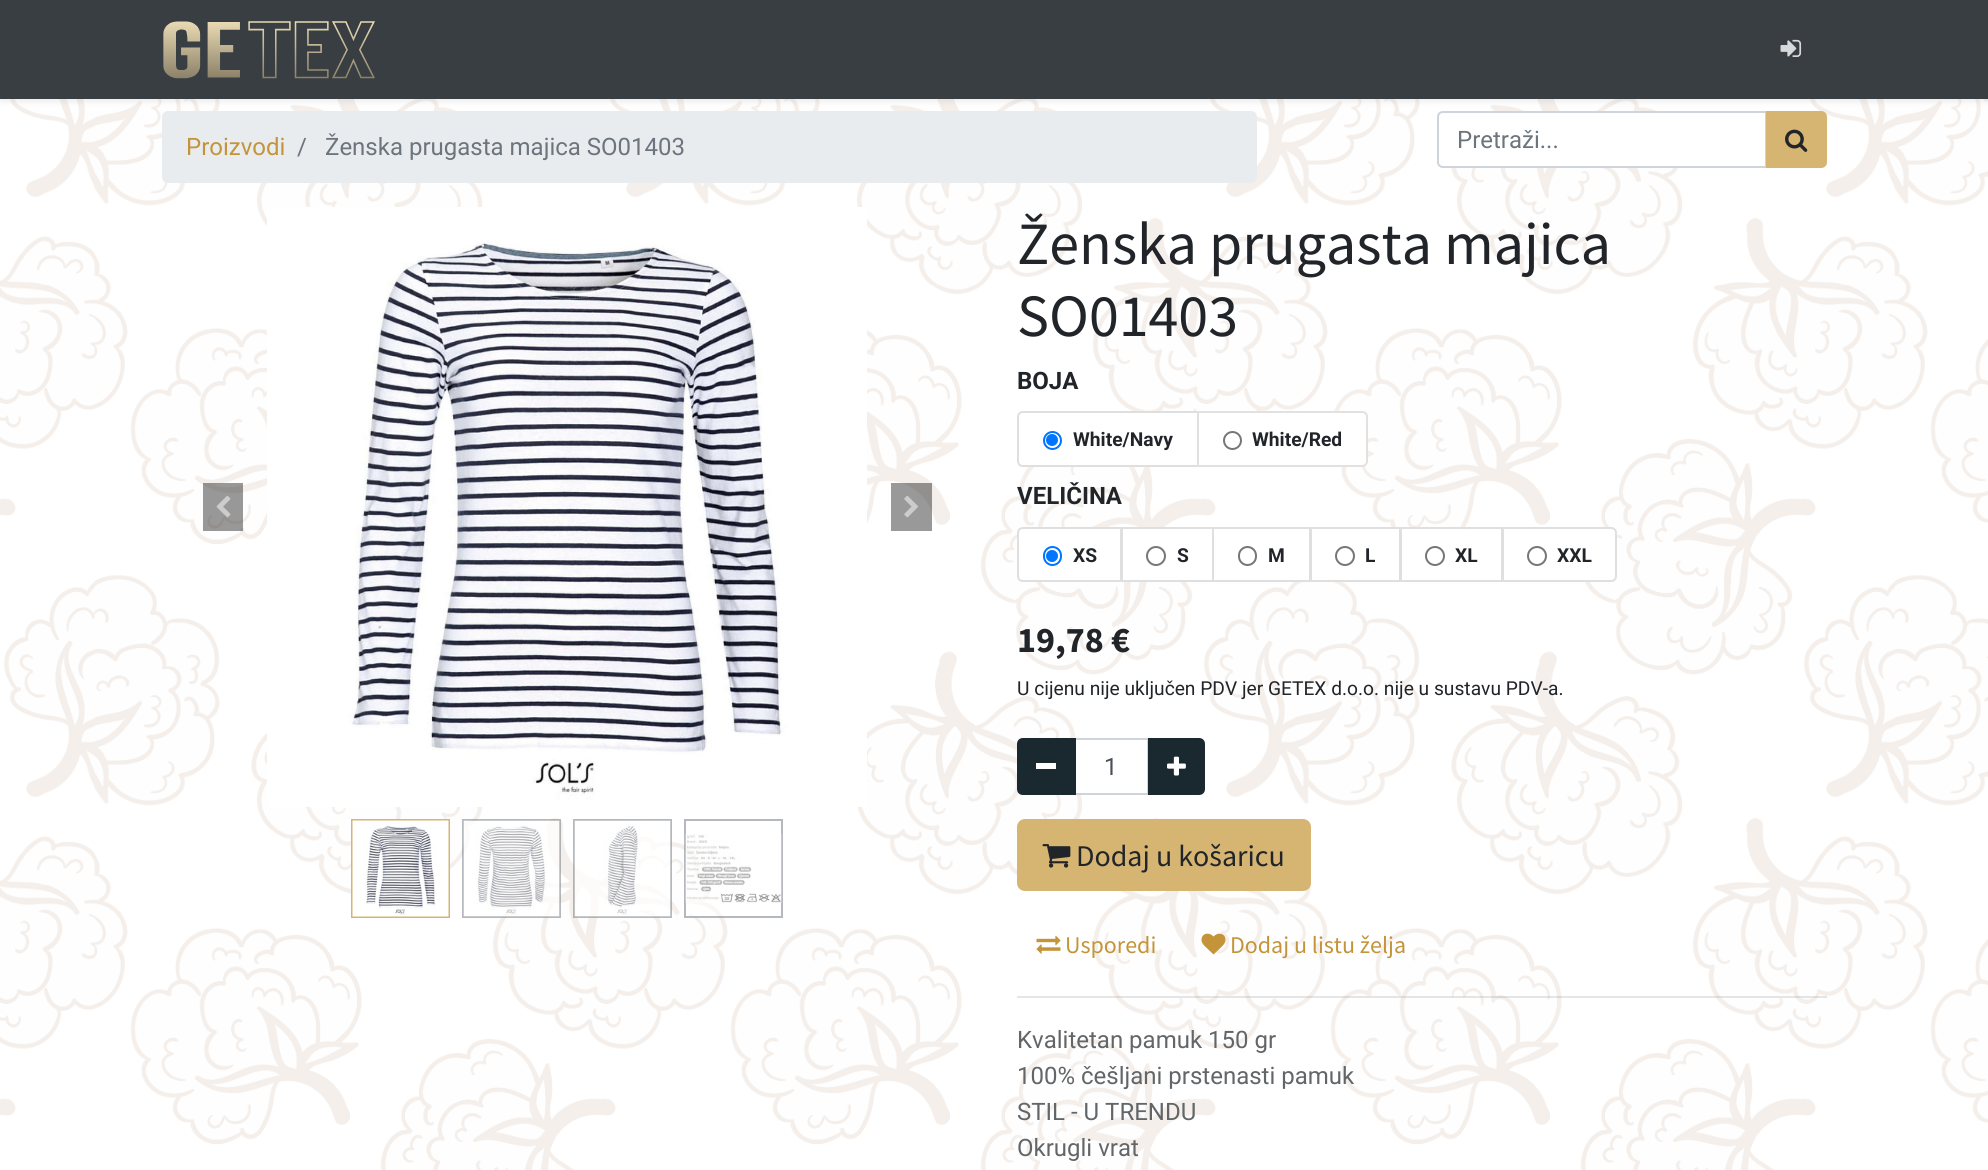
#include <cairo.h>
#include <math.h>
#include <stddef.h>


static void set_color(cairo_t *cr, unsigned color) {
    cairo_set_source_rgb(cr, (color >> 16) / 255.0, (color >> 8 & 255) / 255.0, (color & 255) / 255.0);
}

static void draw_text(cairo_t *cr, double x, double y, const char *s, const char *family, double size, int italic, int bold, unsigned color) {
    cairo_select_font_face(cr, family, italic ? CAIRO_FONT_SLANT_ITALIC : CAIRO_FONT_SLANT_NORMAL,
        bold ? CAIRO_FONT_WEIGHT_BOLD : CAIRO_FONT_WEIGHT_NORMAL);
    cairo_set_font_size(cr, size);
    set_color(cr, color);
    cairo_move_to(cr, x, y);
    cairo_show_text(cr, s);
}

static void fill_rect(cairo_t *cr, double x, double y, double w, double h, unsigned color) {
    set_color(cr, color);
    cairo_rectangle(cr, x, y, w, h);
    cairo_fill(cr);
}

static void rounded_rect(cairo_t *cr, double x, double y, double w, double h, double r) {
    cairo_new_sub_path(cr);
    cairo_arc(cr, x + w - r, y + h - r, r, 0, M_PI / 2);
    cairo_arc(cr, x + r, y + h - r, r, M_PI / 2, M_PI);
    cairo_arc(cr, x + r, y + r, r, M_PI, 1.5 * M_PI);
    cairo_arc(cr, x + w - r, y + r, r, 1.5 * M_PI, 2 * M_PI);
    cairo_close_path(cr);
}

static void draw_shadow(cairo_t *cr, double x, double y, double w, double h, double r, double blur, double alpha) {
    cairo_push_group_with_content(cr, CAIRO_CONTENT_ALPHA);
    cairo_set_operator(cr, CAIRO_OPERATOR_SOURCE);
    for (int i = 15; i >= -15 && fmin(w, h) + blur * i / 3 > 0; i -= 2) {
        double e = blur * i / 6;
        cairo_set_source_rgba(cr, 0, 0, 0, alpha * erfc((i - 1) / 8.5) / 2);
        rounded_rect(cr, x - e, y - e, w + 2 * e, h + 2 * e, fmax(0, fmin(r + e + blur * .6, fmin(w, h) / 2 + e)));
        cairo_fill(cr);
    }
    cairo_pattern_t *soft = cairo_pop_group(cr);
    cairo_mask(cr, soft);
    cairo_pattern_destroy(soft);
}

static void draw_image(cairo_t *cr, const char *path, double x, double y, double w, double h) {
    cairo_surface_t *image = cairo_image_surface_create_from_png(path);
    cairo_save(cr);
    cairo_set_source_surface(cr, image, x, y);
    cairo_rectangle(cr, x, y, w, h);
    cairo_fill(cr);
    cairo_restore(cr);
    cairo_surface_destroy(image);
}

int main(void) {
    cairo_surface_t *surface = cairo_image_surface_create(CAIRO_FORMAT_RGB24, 1988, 1170);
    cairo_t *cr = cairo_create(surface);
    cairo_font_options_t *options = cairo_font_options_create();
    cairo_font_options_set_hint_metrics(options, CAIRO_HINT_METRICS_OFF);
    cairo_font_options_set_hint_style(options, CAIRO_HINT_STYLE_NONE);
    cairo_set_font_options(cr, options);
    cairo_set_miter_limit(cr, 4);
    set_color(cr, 0xFFFFFF);
    cairo_paint(cr);
    draw_image(cr, "assets/img1.png", 0, 99, 1988, 1071);
    set_color(cr, 0xE9ECEF);
    rounded_rect(cr, 162, 111, 1095, 72, 6);
    cairo_fill(cr);
    set_color(cr, 0xFFFFFF);
    cairo_new_path(cr);
    cairo_move_to(cr, 1443, 112);
    cairo_line_to(cr, 1766, 112);
    cairo_line_to(cr, 1766, 167);
    cairo_line_to(cr, 1443, 167);
    cairo_curve_to(cr, 1440, 167, 1438, 165, 1438, 162);
    cairo_line_to(cr, 1438, 117);
    cairo_curve_to(cr, 1438, 114, 1440, 112, 1443, 112);
    cairo_close_path(cr);
    cairo_fill_preserve(cr);
    set_color(cr, 0xCED4DA);
    cairo_stroke(cr);
    set_color(cr, 0xD6B472);
    cairo_new_path(cr);
    cairo_move_to(cr, 1767, 112);
    cairo_line_to(cr, 1821, 112);
    cairo_curve_to(cr, 1824, 112, 1826, 114, 1826, 117);
    cairo_line_to(cr, 1826, 162);
    cairo_curve_to(cr, 1826, 165, 1824, 167, 1821, 167);
    cairo_line_to(cr, 1767, 167);
    cairo_close_path(cr);
    cairo_fill_preserve(cr);
    cairo_stroke(cr);
    set_color(cr, 0x000000);
    draw_shadow(cr, 0, 3, 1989, 99, 0, 3, 0.07);
    fill_rect(cr, 0, 0, 1988, 99, 0x383E42);
    draw_image(cr, "assets/img2.png", 163, 21, 212, 58);
    draw_image(cr, "assets/img3.png", 1780, 39, 22, 18);
    draw_text(cr, 186, 155, "Proizvodi", "Roboto", 24, 0, 0, 0xC39439);
    draw_text(cr, 297, 155, "/", "Roboto", 24, 0, 0, 0x6C757D);
    draw_text(cr, 325, 155, "Ženska prugasta majica SO01403", "Roboto", 24, 0, 0, 0x6C757D);
    draw_text(cr, 1457, 148, "Pretraži...", "Roboto", 24, 0, 0, 0x6C757D);
    draw_image(cr, "assets/img4.png", 1785, 129, 23, 23);
    cairo_set_source_rgba(cr, 0, 0, 0, 0.4);
    cairo_rectangle(cr, 203, 483, 40, 48);
    cairo_fill(cr);
    draw_image(cr, "assets/img5.png", 216, 495, 15, 23);
    draw_image(cr, "assets/img6.png", 267, 207, 600, 600);
    cairo_rectangle(cr, 891, 483, 41, 48);
    cairo_fill(cr);
    draw_image(cr, "assets/img7.png", 904, 495, 14, 23);
    cairo_rectangle(cr, 352, 820, 97, 97);
    set_color(cr, 0xD6B472);
    cairo_stroke(cr);
    draw_image(cr, "assets/img8.png", 352, 820, 97, 97);
    cairo_set_source_rgba(cr, 1, 1, 1, 0.5);
    cairo_rectangle(cr, 464, 821, 96, 96);
    cairo_fill(cr);
    cairo_rectangle(cr, 463, 820, 97, 97);
    cairo_set_source_rgba(cr, 0.424, 0.459, 0.49, 0.5);
    cairo_stroke(cr);
    draw_image(cr, "assets/img9.png", 463, 820, 97, 97);
    cairo_set_source_rgba(cr, 1, 1, 1, 0.5);
    cairo_rectangle(cr, 575, 836, 96, 81);
    cairo_fill(cr);
    cairo_rectangle(cr, 574, 820, 97, 97);
    cairo_set_source_rgba(cr, 0.424, 0.459, 0.49, 0.5);
    cairo_stroke(cr);
    draw_image(cr, "assets/img10.png", 574, 820, 97, 97);
    cairo_set_source_rgba(cr, 1, 1, 1, 0.5);
    cairo_rectangle(cr, 686, 846, 37, 71);
    cairo_fill(cr);
    cairo_rectangle(cr, 685, 820, 97, 97);
    cairo_set_source_rgba(cr, 0.424, 0.459, 0.49, 0.5);
    cairo_stroke(cr);
    draw_image(cr, "assets/img11.png", 685, 834, 97, 69);
    draw_text(cr, 1017, 264, "Ženska prugasta majica", "Source Sans Pro", 60, 0, 0, 0x212529);
    draw_text(cr, 1017, 336, "SO01403", "Source Sans Pro", 60, 0, 0, 0x212529);
    draw_text(cr, 1017, 389, "BOJA", "Roboto", 24, 0, 1, 0x212529);
    set_color(cr, 0xFFFFFF);
    cairo_new_path(cr);
    cairo_move_to(cr, 1023, 412);
    cairo_line_to(cr, 1198, 412);
    cairo_line_to(cr, 1198, 466);
    cairo_line_to(cr, 1023, 466);
    cairo_curve_to(cr, 1020, 466, 1018, 464, 1018, 461);
    cairo_line_to(cr, 1018, 417);
    cairo_curve_to(cr, 1018, 414, 1020, 412, 1023, 412);
    cairo_close_path(cr);
    cairo_fill_preserve(cr);
    set_color(cr, 0xDFDFDF);
    cairo_stroke(cr);
    cairo_arc(cr, 1052.5, 440.5, 8.5, 0, 2 * M_PI);
    set_color(cr, 0x0075FF);
    cairo_stroke(cr);
    cairo_arc(cr, 1052, 440, 6, 0, 2 * M_PI);
    cairo_fill(cr);
    draw_text(cr, 1073, 446, "White/Navy", "Roboto", 19.2, 0, 1, 0x212529);
    set_color(cr, 0xFFFFFF);
    cairo_new_path(cr);
    cairo_move_to(cr, 1197, 411);
    cairo_line_to(cr, 1362, 411);
    cairo_curve_to(cr, 1365.5, 411, 1368, 413.5, 1368, 417);
    cairo_line_to(cr, 1368, 461);
    cairo_curve_to(cr, 1368, 464.5, 1365.5, 467, 1362, 467);
    cairo_line_to(cr, 1197, 467);
    cairo_close_path(cr);
    cairo_fill(cr);
    cairo_new_path(cr);
    cairo_move_to(cr, 1198, 412);
    cairo_line_to(cr, 1362, 412);
    cairo_curve_to(cr, 1365, 412, 1367, 414, 1367, 417);
    cairo_line_to(cr, 1367, 461);
    cairo_curve_to(cr, 1367, 464, 1365, 466, 1362, 466);
    cairo_line_to(cr, 1198, 466);
    cairo_close_path(cr);
    cairo_set_source_rgba(cr, 0, 0, 0, 0.12);
    cairo_stroke(cr);
    cairo_arc(cr, 1232.5, 440.5, 8.5, 0, 2 * M_PI);
    set_color(cr, 0x767676);
    cairo_stroke(cr);
    draw_text(cr, 1252, 446, "White/Red", "Roboto", 19.2, 0, 1, 0x212529);
    draw_text(cr, 1017, 504, "VELIČINA", "Roboto", 24, 0, 1, 0x212529);
    set_color(cr, 0xFFFFFF);
    cairo_new_path(cr);
    cairo_move_to(cr, 1023, 528);
    cairo_line_to(cr, 1121, 528);
    cairo_line_to(cr, 1121, 581);
    cairo_line_to(cr, 1023, 581);
    cairo_curve_to(cr, 1020, 581, 1018, 579, 1018, 576);
    cairo_line_to(cr, 1018, 533);
    cairo_curve_to(cr, 1018, 530, 1020, 528, 1023, 528);
    cairo_close_path(cr);
    cairo_fill_preserve(cr);
    set_color(cr, 0xDFDFDF);
    cairo_stroke(cr);
    rounded_rect(cr, 1044, 547, 17, 18, 8.5);
    set_color(cr, 0x0075FF);
    cairo_stroke(cr);
    cairo_arc(cr, 1052, 556, 6, 0, 2 * M_PI);
    cairo_fill(cr);
    draw_text(cr, 1073, 562, "XS", "Roboto", 19.2, 0, 1, 0x212529);
    fill_rect(cr, 1123, 529, 62, 51, 0xFFFFFF);
    cairo_rectangle(cr, 1122, 528, 91, 53);
    set_color(cr, 0xDFDFDF);
    cairo_stroke(cr);
    cairo_arc(cr, 1156, 556, 9, 0, 2 * M_PI);
    set_color(cr, 0x767676);
    cairo_stroke(cr);
    draw_text(cr, 1177, 562, "S", "Roboto", 19.2, 0, 1, 0x212529);
    fill_rect(cr, 1296, 576, 13, 4, 0xFFFFFF);
    cairo_rectangle(cr, 1213, 528, 97, 53);
    set_color(cr, 0xDFDFDF);
    cairo_stroke(cr);
    rounded_rect(cr, 1239, 547, 17, 18, 8.5);
    set_color(cr, 0x767676);
    cairo_stroke(cr);
    draw_text(cr, 1268, 562, "M", "Roboto", 19.2, 0, 1, 0x212529);
    set_color(cr, 0xFFFFFF);
    cairo_rectangle(cr, 1311, 528, 89, 53);
    cairo_fill_preserve(cr);
    set_color(cr, 0xDFDFDF);
    cairo_stroke(cr);
    cairo_arc(cr, 1345, 556, 9, 0, 2 * M_PI);
    set_color(cr, 0x767676);
    cairo_stroke(cr);
    draw_text(cr, 1365, 562, "L", "Roboto", 19.2, 0, 1, 0x212529);
    fill_rect(cr, 1402, 529, 62, 16, 0xFFFFFF);
    cairo_rectangle(cr, 1401, 528, 101, 53);
    set_color(cr, 0xDFDFDF);
    cairo_stroke(cr);
    cairo_arc(cr, 1435, 556, 9, 0, 2 * M_PI);
    set_color(cr, 0x767676);
    cairo_stroke(cr);
    draw_text(cr, 1455, 562, "XL", "Roboto", 19.2, 0, 1, 0x212529);
    set_color(cr, 0xFFFFFF);
    cairo_new_path(cr);
    cairo_move_to(cr, 1503, 528);
    cairo_line_to(cr, 1611, 528);
    cairo_curve_to(cr, 1614, 528, 1616, 530, 1616, 533);
    cairo_line_to(cr, 1616, 576);
    cairo_curve_to(cr, 1616, 579, 1614, 581, 1611, 581);
    cairo_line_to(cr, 1503, 581);
    cairo_close_path(cr);
    cairo_fill_preserve(cr);
    set_color(cr, 0xDFDFDF);
    cairo_stroke(cr);
    cairo_arc(cr, 1537, 556, 9, 0, 2 * M_PI);
    set_color(cr, 0x767676);
    cairo_stroke(cr);
    draw_text(cr, 1557, 562, "XXL", "Roboto", 19.2, 0, 1, 0x212529);
    draw_text(cr, 1017, 652, "19,78 €", "Source Sans Pro", 36, 0, 1, 0x212529);
    draw_text(cr, 1017, 695, "U cijenu nije uključen PDV jer GETEX d.o.o. nije u sustavu PDV-a.", "Roboto", 19.2, 0, 0, 0x212529);
    fill_rect(cr, 1076, 753, 4, 40, 0xFFFFFF);
    cairo_rectangle(cr, 1075, 739, 73, 55);
    set_color(cr, 0xCED4DA);
    cairo_stroke(cr);
    set_color(cr, 0x1A2930);
    cairo_new_path(cr);
    cairo_move_to(cr, 1023, 739);
    cairo_line_to(cr, 1075, 739);
    cairo_line_to(cr, 1075, 794);
    cairo_line_to(cr, 1023, 794);
    cairo_curve_to(cr, 1020, 794, 1018, 792, 1018, 789);
    cairo_line_to(cr, 1018, 744);
    cairo_curve_to(cr, 1018, 741, 1020, 739, 1023, 739);
    cairo_close_path(cr);
    cairo_fill_preserve(cr);
    cairo_stroke(cr);
    fill_rect(cr, 1036, 763, 20, 6, 0xFFFFFF);
    draw_text(cr, 1104, 775, "1", "Roboto", 24, 0, 0, 0x495057);
    set_color(cr, 0x1A2930);
    cairo_new_path(cr);
    cairo_move_to(cr, 1149, 739);
    cairo_line_to(cr, 1199, 739);
    cairo_curve_to(cr, 1202, 739, 1204, 741, 1204, 744);
    cairo_line_to(cr, 1204, 789);
    cairo_curve_to(cr, 1204, 792, 1202, 794, 1199, 794);
    cairo_line_to(cr, 1149, 794);
    cairo_close_path(cr);
    cairo_fill_preserve(cr);
    cairo_stroke(cr);
    draw_image(cr, "assets/img12.png", 1167, 756, 19, 20);
    set_color(cr, 0xD6B472);
    rounded_rect(cr, 1018, 820, 292, 70, 7);
    cairo_fill_preserve(cr);
    cairo_stroke(cr);
    draw_image(cr, "assets/img13.png", 1042, 844, 29, 24);
    draw_text(cr, 1076, 866, "Dodaj u košaricu", "Source Sans Pro", 30, 0, 0, 0x212529);
    draw_image(cr, "assets/img14.png", 1036, 935, 25, 19);
    draw_text(cr, 1065, 953, "Usporedi", "Source Sans Pro", 24, 0, 0, 0xC39439);
    draw_image(cr, "assets/img15.png", 1201, 933, 25, 22);
    draw_text(cr, 1230, 953, "Dodaj u listu želja", "Source Sans Pro", 24, 0, 0, 0xC39439);
    cairo_set_source_rgba(cr, 0, 0, 0, 0.1);
    cairo_rectangle(cr, 1017, 996, 810, 2);
    cairo_fill(cr);
    draw_text(cr, 1017, 1048, "Kvalitetan pamuk 150 gr", "Roboto", 24, 0, 0, 0x636668);
    draw_text(cr, 1017, 1084, "100% češljani prstenasti pamuk", "Roboto", 24, 0, 0, 0x636668);
    draw_text(cr, 1017, 1120, "STIL - U TRENDU", "Roboto", 24, 0, 0, 0x636668);
    draw_text(cr, 1017, 1156, "Okrugli vrat", "Roboto", 24, 0, 0, 0x636668);
    cairo_surface_write_to_png(surface, "output.png");
    cairo_font_options_destroy(options);
    cairo_destroy(cr);
    cairo_surface_destroy(surface);
    return 0;
}
